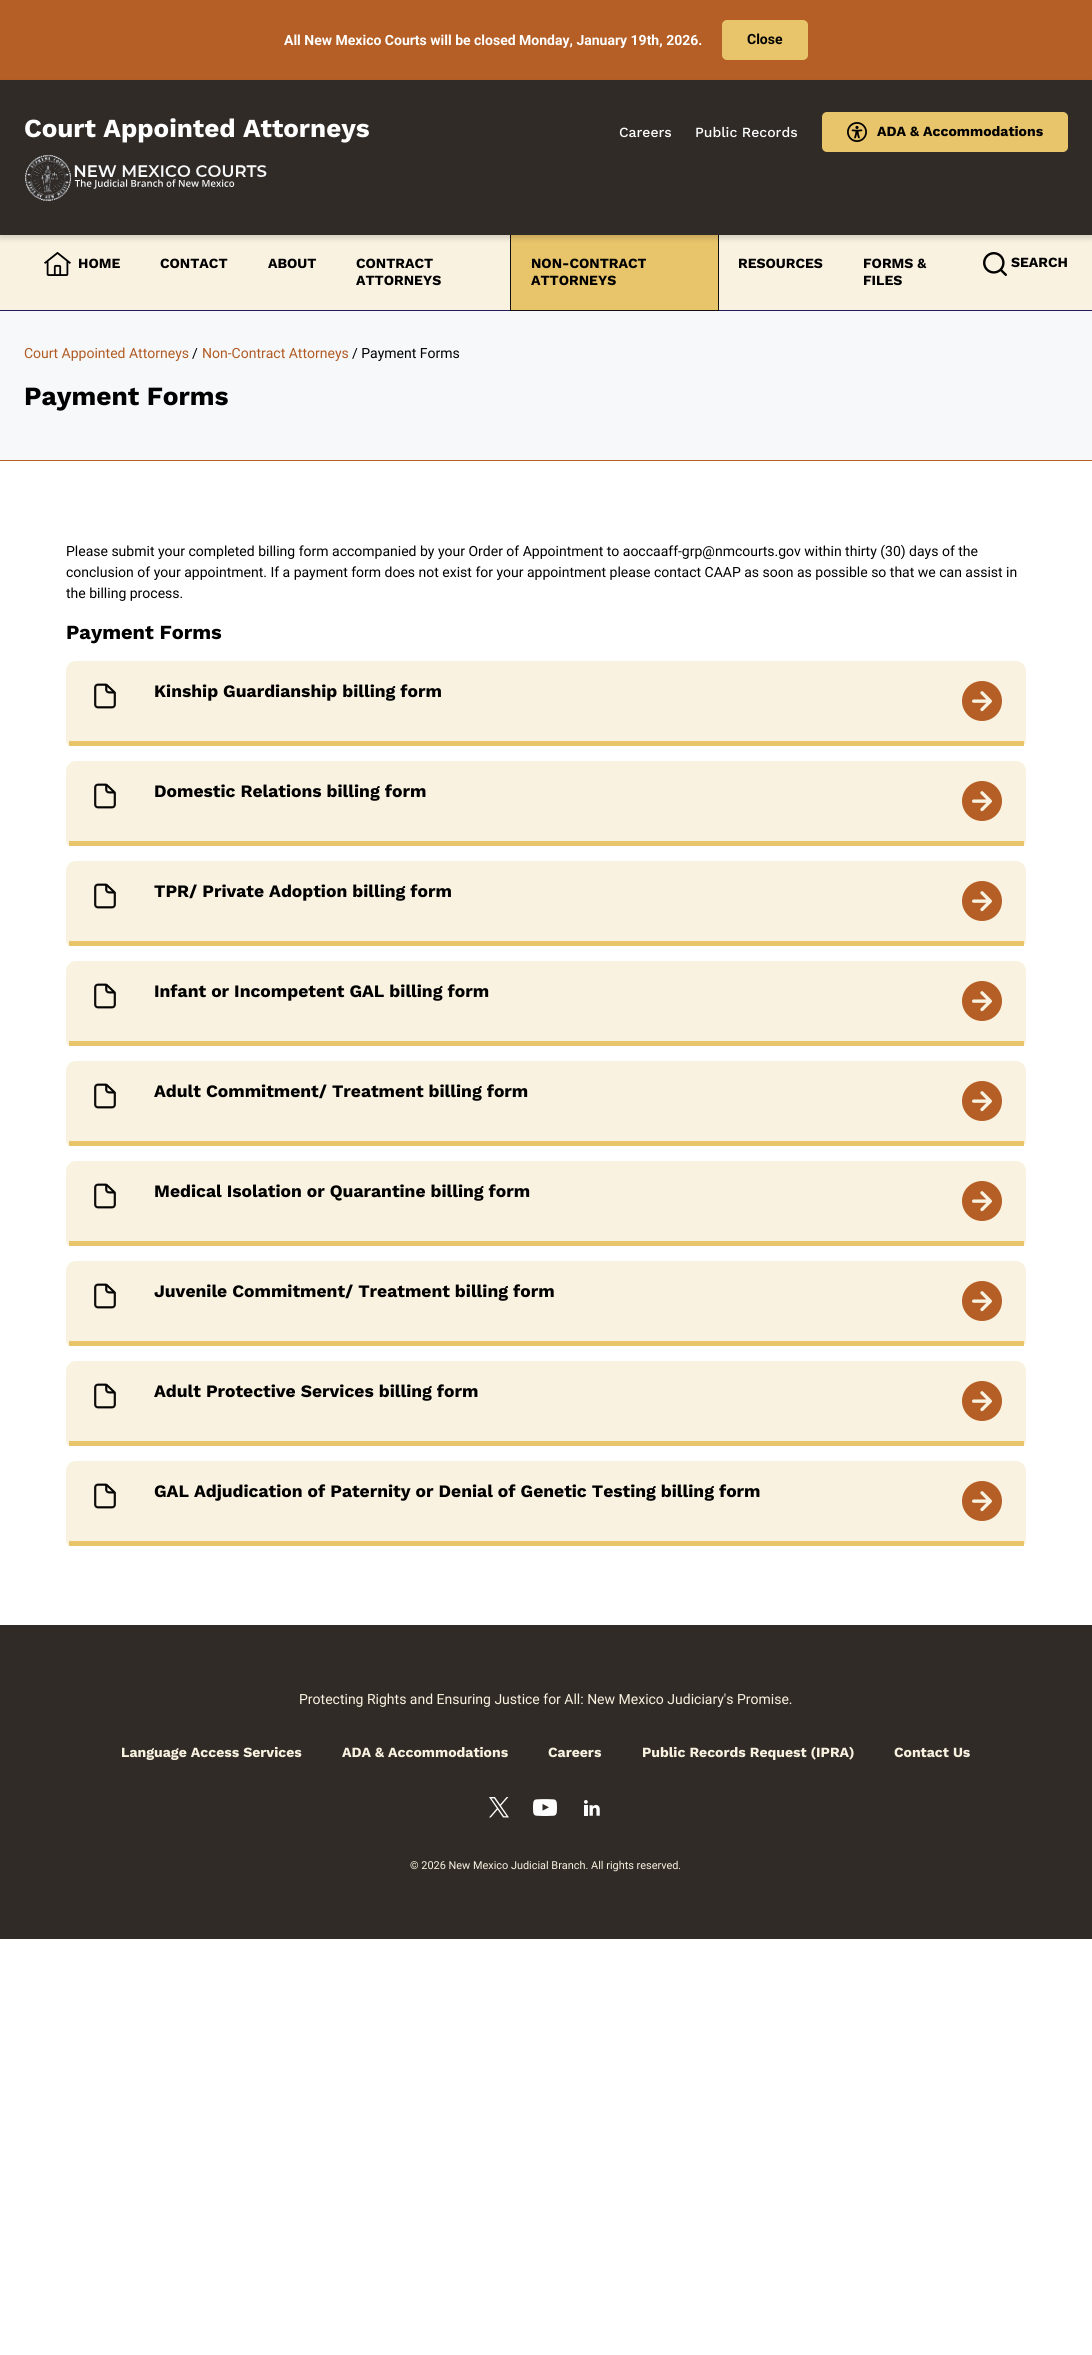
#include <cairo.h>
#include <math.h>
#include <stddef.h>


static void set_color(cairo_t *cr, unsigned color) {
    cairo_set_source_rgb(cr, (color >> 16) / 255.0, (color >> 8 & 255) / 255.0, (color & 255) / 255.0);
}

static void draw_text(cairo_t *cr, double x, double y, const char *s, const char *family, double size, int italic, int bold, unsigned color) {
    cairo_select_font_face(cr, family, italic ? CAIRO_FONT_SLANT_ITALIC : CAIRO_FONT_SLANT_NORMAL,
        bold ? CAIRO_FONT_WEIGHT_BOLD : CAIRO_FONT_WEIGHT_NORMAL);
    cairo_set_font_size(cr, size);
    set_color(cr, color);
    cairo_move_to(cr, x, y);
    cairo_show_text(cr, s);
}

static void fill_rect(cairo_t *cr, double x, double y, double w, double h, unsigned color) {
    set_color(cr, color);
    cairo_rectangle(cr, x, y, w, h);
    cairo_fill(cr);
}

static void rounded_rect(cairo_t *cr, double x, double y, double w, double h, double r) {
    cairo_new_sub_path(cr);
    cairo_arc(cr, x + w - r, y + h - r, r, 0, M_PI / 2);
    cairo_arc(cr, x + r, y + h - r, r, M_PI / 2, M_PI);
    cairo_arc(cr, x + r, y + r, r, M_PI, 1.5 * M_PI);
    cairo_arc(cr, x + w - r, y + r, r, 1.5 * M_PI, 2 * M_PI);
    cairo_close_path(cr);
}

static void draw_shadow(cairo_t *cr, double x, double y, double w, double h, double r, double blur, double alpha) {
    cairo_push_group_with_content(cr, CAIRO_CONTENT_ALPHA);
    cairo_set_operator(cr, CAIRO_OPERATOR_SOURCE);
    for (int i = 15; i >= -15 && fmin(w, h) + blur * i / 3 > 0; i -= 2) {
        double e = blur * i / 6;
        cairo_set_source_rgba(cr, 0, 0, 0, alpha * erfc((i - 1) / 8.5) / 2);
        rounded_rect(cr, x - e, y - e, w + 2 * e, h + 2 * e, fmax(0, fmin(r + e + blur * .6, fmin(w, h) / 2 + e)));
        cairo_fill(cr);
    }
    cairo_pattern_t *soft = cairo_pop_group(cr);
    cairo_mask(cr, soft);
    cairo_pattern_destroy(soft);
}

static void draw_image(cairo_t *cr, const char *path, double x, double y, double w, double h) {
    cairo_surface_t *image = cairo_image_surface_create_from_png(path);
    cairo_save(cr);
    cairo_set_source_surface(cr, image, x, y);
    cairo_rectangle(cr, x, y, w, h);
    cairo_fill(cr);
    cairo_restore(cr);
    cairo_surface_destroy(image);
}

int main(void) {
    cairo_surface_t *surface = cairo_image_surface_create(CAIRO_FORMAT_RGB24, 1092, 2355);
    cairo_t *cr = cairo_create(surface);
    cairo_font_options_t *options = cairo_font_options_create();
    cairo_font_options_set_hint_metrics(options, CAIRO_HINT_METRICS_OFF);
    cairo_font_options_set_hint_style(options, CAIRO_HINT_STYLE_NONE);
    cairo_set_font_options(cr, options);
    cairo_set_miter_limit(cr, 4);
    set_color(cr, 0xFFFFFF);
    cairo_paint(cr);
    fill_rect(cr, 0, 0, 1092, 80, 0xB55F26);
    draw_text(cr, 284, 45, "All New Mexico Courts will be closed Monday, January 19th, 2026.", "Roboto", 14, 0, 1, 0xFFFFFF);
    set_color(cr, 0xE8C46A);
    rounded_rect(cr, 722, 20, 86, 40, 5);
    cairo_fill(cr);
    draw_text(cr, 747, 44, "Close", "Roboto", 14, 0, 1, 0x000000);
    fill_rect(cr, 0, 235, 1092, 75, 0xF9F2E0);
    fill_rect(cr, 0, 310, 1092, 1, 0x271960);
    fill_rect(cr, 511, 235, 207, 75, 0xE8C46A);
    cairo_rectangle(cr, 510.5, 234.5, 208, 76);
    set_color(cr, 0x101010);
    cairo_set_line_width(cr, 1);
    cairo_stroke(cr);
    set_color(cr, 0x000000);
    draw_shadow(cr, 0, 83, 1092, 155, 0, 3, 0.16);
    fill_rect(cr, 0, 80, 1092, 155, 0x302B27);
    draw_text(cr, 24, 137, "Court Appointed Attorneys", "Work Sans", 26, 0, 1, 0xFFFFFF);
    draw_image(cr, "assets/img1.png", 25, 155, 242, 46);
    draw_text(cr, 619, 137, "Careers", "Work Sans Medium", 14, 0, 0, 0xFFFFFF);
    draw_text(cr, 695, 137, "Public Records", "Work Sans Medium", 14, 0, 0, 0xFFFFFF);
    set_color(cr, 0xE8C46A);
    rounded_rect(cr, 822, 112, 246, 40, 5);
    cairo_fill(cr);
    draw_image(cr, "assets/img2.png", 847, 122, 20, 20);
    draw_text(cr, 877, 136, "ADA & Accommodations", "Work Sans", 14, 0, 1, 0x000000);
    draw_image(cr, "assets/img3.png", 44, 252, 27, 24);
    draw_text(cr, 78, 268, "HOME", "Work Sans", 14, 0, 1, 0x000000);
    draw_text(cr, 160, 268, "CONTACT", "Work Sans", 14, 0, 1, 0x000000);
    draw_text(cr, 268, 268, "ABOUT", "Work Sans", 14, 0, 1, 0x000000);
    draw_text(cr, 356, 268, "CONTRACT", "Work Sans", 14, 0, 1, 0x000000);
    draw_text(cr, 356, 285, "ATTORNEYS", "Work Sans", 14, 0, 1, 0x000000);
    draw_text(cr, 531, 268, "NON-CONTRACT", "Work Sans", 14, 0, 1, 0x000000);
    draw_text(cr, 531, 285, "ATTORNEYS", "Work Sans", 14, 0, 1, 0x000000);
    draw_text(cr, 738, 268, "RESOURCES", "Work Sans", 14, 0, 1, 0x000000);
    draw_text(cr, 863, 268, "FORMS &", "Work Sans", 14, 0, 1, 0x000000);
    draw_text(cr, 863, 285, "FILES", "Work Sans", 14, 0, 1, 0x000000);
    draw_image(cr, "assets/img4.png", 983, 252, 24, 24);
    draw_text(cr, 1011, 267, "SEARCH", "Work Sans", 14, 0, 1, 0x000000);
    fill_rect(cr, 0, 311, 1092, 149, 0xF7F8FA);
    fill_rect(cr, 0, 460, 1092, 1, 0xB55F26);
    draw_text(cr, 24, 358, "Court Appointed Attorneys", "Roboto", 14, 0, 0, 0xAF5B23);
    draw_text(cr, 192, 358, "/", "Roboto", 14, 0, 0, 0x000000);
    draw_text(cr, 202, 358, "Non-Contract Attorneys", "Roboto", 14, 0, 0, 0xAF5B23);
    draw_text(cr, 352, 358, "/ Payment Forms", "Roboto", 14, 0, 0, 0x000000);
    draw_text(cr, 24, 405, "Payment Forms", "Work Sans", 26.25, 0, 1, 0x000000);
    draw_text(cr, 66, 556, "Please submit your completed billing form accompanied by your Order of Appointment to aoccaaff-grp@nmcourts.gov within thirty (30) days of the", "Roboto", 14, 0, 0, 0x000000);
    draw_text(cr, 66, 577, "conclusion of your appointment. If a payment form does not exist for your appointment please contact CAAP as soon as possible so that we can assist in", "Roboto", 14, 0, 0, 0x000000);
    draw_text(cr, 66, 598, "the billing process.", "Roboto", 14, 0, 0, 0x000000);
    draw_text(cr, 66, 639, "Payment Forms", "Work Sans", 20, 0, 1, 0x000000);
    set_color(cr, 0xF9F2E0);
    cairo_new_path(cr);
    cairo_move_to(cr, 76, 661);
    cairo_line_to(cr, 1016, 661);
    cairo_curve_to(cr, 1021.5, 661, 1026, 665.5, 1026, 671);
    cairo_line_to(cr, 1026, 741);
    cairo_curve_to(cr, 1026, 744, 1024, 746, 1021, 746);
    cairo_line_to(cr, 71, 746);
    cairo_curve_to(cr, 68, 746, 66, 744, 66, 741);
    cairo_line_to(cr, 66, 671);
    cairo_curve_to(cr, 66, 665.5, 70.5, 661, 76, 661);
    cairo_close_path(cr);
    cairo_fill(cr);
    fill_rect(cr, 69, 741, 955, 5, 0xE8C46A);
    draw_image(cr, "assets/img5.png", 94, 683, 22, 26);
    draw_text(cr, 154, 697, "Kinship Guardianship billing form", "Work Sans", 17.45, 0, 1, 0x000000);
    set_color(cr, 0xB55F26);
    cairo_new_path(cr);
    cairo_arc(cr, 982, 701, 20, 0, 2 * M_PI);
    cairo_fill(cr);
    draw_image(cr, "assets/img6.png", 972, 691, 20, 21);
    set_color(cr, 0xF9F2E0);
    cairo_new_path(cr);
    cairo_move_to(cr, 76, 761);
    cairo_line_to(cr, 1016, 761);
    cairo_curve_to(cr, 1021.5, 761, 1026, 765.5, 1026, 771);
    cairo_line_to(cr, 1026, 841);
    cairo_curve_to(cr, 1026, 844, 1024, 846, 1021, 846);
    cairo_line_to(cr, 71, 846);
    cairo_curve_to(cr, 68, 846, 66, 844, 66, 841);
    cairo_line_to(cr, 66, 771);
    cairo_curve_to(cr, 66, 765.5, 70.5, 761, 76, 761);
    cairo_close_path(cr);
    cairo_fill(cr);
    fill_rect(cr, 69, 841, 955, 5, 0xE8C46A);
    draw_image(cr, "assets/img5.png", 94, 783, 22, 26);
    draw_text(cr, 154, 797, "Domestic Relations billing form", "Work Sans", 17.45, 0, 1, 0x000000);
    set_color(cr, 0xB55F26);
    cairo_new_path(cr);
    cairo_arc(cr, 982, 801, 20, 0, 2 * M_PI);
    cairo_fill(cr);
    draw_image(cr, "assets/img6.png", 972, 791, 20, 21);
    set_color(cr, 0xF9F2E0);
    cairo_new_path(cr);
    cairo_move_to(cr, 76, 861);
    cairo_line_to(cr, 1016, 861);
    cairo_curve_to(cr, 1021.5, 861, 1026, 865.5, 1026, 871);
    cairo_line_to(cr, 1026, 941);
    cairo_curve_to(cr, 1026, 944, 1024, 946, 1021, 946);
    cairo_line_to(cr, 71, 946);
    cairo_curve_to(cr, 68, 946, 66, 944, 66, 941);
    cairo_line_to(cr, 66, 871);
    cairo_curve_to(cr, 66, 865.5, 70.5, 861, 76, 861);
    cairo_close_path(cr);
    cairo_fill(cr);
    fill_rect(cr, 69, 941, 955, 5, 0xE8C46A);
    draw_image(cr, "assets/img5.png", 94, 883, 22, 26);
    draw_text(cr, 154, 897, "TPR/ Private Adoption billing form", "Work Sans", 17.45, 0, 1, 0x000000);
    set_color(cr, 0xB55F26);
    cairo_new_path(cr);
    cairo_arc(cr, 982, 901, 20, 0, 2 * M_PI);
    cairo_fill(cr);
    draw_image(cr, "assets/img6.png", 972, 891, 20, 21);
    set_color(cr, 0xF9F2E0);
    cairo_new_path(cr);
    cairo_move_to(cr, 76, 961);
    cairo_line_to(cr, 1016, 961);
    cairo_curve_to(cr, 1021.5, 961, 1026, 965.5, 1026, 971);
    cairo_line_to(cr, 1026, 1041);
    cairo_curve_to(cr, 1026, 1044, 1024, 1046, 1021, 1046);
    cairo_line_to(cr, 71, 1046);
    cairo_curve_to(cr, 68, 1046, 66, 1044, 66, 1041);
    cairo_line_to(cr, 66, 971);
    cairo_curve_to(cr, 66, 965.5, 70.5, 961, 76, 961);
    cairo_close_path(cr);
    cairo_fill(cr);
    fill_rect(cr, 69, 1041, 955, 5, 0xE8C46A);
    draw_image(cr, "assets/img5.png", 94, 983, 22, 26);
    draw_text(cr, 154, 997, "Infant or Incompetent GAL billing form", "Work Sans", 17.45, 0, 1, 0x000000);
    set_color(cr, 0xB55F26);
    cairo_new_path(cr);
    cairo_arc(cr, 982, 1001, 20, 0, 2 * M_PI);
    cairo_fill(cr);
    draw_image(cr, "assets/img6.png", 972, 991, 20, 21);
    set_color(cr, 0xF9F2E0);
    cairo_new_path(cr);
    cairo_move_to(cr, 76, 1061);
    cairo_line_to(cr, 1016, 1061);
    cairo_curve_to(cr, 1021.5, 1061, 1026, 1065.5, 1026, 1071);
    cairo_line_to(cr, 1026, 1141);
    cairo_curve_to(cr, 1026, 1144, 1024, 1146, 1021, 1146);
    cairo_line_to(cr, 71, 1146);
    cairo_curve_to(cr, 68, 1146, 66, 1144, 66, 1141);
    cairo_line_to(cr, 66, 1071);
    cairo_curve_to(cr, 66, 1065.5, 70.5, 1061, 76, 1061);
    cairo_close_path(cr);
    cairo_fill(cr);
    fill_rect(cr, 69, 1141, 955, 5, 0xE8C46A);
    draw_image(cr, "assets/img5.png", 94, 1083, 22, 26);
    draw_text(cr, 154, 1097, "Adult Commitment/ Treatment billing form", "Work Sans", 17.45, 0, 1, 0x000000);
    set_color(cr, 0xB55F26);
    cairo_new_path(cr);
    cairo_arc(cr, 982, 1101, 20, 0, 2 * M_PI);
    cairo_fill(cr);
    draw_image(cr, "assets/img6.png", 972, 1091, 20, 21);
    set_color(cr, 0xF9F2E0);
    cairo_new_path(cr);
    cairo_move_to(cr, 76, 1161);
    cairo_line_to(cr, 1016, 1161);
    cairo_curve_to(cr, 1021.5, 1161, 1026, 1165.5, 1026, 1171);
    cairo_line_to(cr, 1026, 1241);
    cairo_curve_to(cr, 1026, 1244, 1024, 1246, 1021, 1246);
    cairo_line_to(cr, 71, 1246);
    cairo_curve_to(cr, 68, 1246, 66, 1244, 66, 1241);
    cairo_line_to(cr, 66, 1171);
    cairo_curve_to(cr, 66, 1165.5, 70.5, 1161, 76, 1161);
    cairo_close_path(cr);
    cairo_fill(cr);
    fill_rect(cr, 69, 1241, 955, 5, 0xE8C46A);
    draw_image(cr, "assets/img5.png", 94, 1183, 22, 26);
    draw_text(cr, 154, 1197, "Medical Isolation or Quarantine billing form", "Work Sans", 17.45, 0, 1, 0x000000);
    set_color(cr, 0xB55F26);
    cairo_new_path(cr);
    cairo_arc(cr, 982, 1201, 20, 0, 2 * M_PI);
    cairo_fill(cr);
    draw_image(cr, "assets/img6.png", 972, 1191, 20, 21);
    set_color(cr, 0xF9F2E0);
    cairo_new_path(cr);
    cairo_move_to(cr, 76, 1261);
    cairo_line_to(cr, 1016, 1261);
    cairo_curve_to(cr, 1021.5, 1261, 1026, 1265.5, 1026, 1271);
    cairo_line_to(cr, 1026, 1341);
    cairo_curve_to(cr, 1026, 1344, 1024, 1346, 1021, 1346);
    cairo_line_to(cr, 71, 1346);
    cairo_curve_to(cr, 68, 1346, 66, 1344, 66, 1341);
    cairo_line_to(cr, 66, 1271);
    cairo_curve_to(cr, 66, 1265.5, 70.5, 1261, 76, 1261);
    cairo_close_path(cr);
    cairo_fill(cr);
    fill_rect(cr, 69, 1341, 955, 5, 0xE8C46A);
    draw_image(cr, "assets/img5.png", 94, 1283, 22, 26);
    draw_text(cr, 154, 1297, "Juvenile Commitment/ Treatment billing form", "Work Sans", 17.45, 0, 1, 0x000000);
    set_color(cr, 0xB55F26);
    cairo_new_path(cr);
    cairo_arc(cr, 982, 1301, 20, 0, 2 * M_PI);
    cairo_fill(cr);
    draw_image(cr, "assets/img6.png", 972, 1291, 20, 21);
    set_color(cr, 0xF9F2E0);
    cairo_new_path(cr);
    cairo_move_to(cr, 76, 1361);
    cairo_line_to(cr, 1016, 1361);
    cairo_curve_to(cr, 1021.5, 1361, 1026, 1365.5, 1026, 1371);
    cairo_line_to(cr, 1026, 1441);
    cairo_curve_to(cr, 1026, 1444, 1024, 1446, 1021, 1446);
    cairo_line_to(cr, 71, 1446);
    cairo_curve_to(cr, 68, 1446, 66, 1444, 66, 1441);
    cairo_line_to(cr, 66, 1371);
    cairo_curve_to(cr, 66, 1365.5, 70.5, 1361, 76, 1361);
    cairo_close_path(cr);
    cairo_fill(cr);
    fill_rect(cr, 69, 1441, 955, 5, 0xE8C46A);
    draw_image(cr, "assets/img5.png", 94, 1383, 22, 26);
    draw_text(cr, 154, 1397, "Adult Protective Services billing form", "Work Sans", 17.45, 0, 1, 0x000000);
    set_color(cr, 0xB55F26);
    cairo_new_path(cr);
    cairo_arc(cr, 982, 1401, 20, 0, 2 * M_PI);
    cairo_fill(cr);
    draw_image(cr, "assets/img6.png", 972, 1391, 20, 21);
    set_color(cr, 0xF9F2E0);
    cairo_new_path(cr);
    cairo_move_to(cr, 76, 1461);
    cairo_line_to(cr, 1016, 1461);
    cairo_curve_to(cr, 1021.5, 1461, 1026, 1465.5, 1026, 1471);
    cairo_line_to(cr, 1026, 1541);
    cairo_curve_to(cr, 1026, 1544, 1024, 1546, 1021, 1546);
    cairo_line_to(cr, 71, 1546);
    cairo_curve_to(cr, 68, 1546, 66, 1544, 66, 1541);
    cairo_line_to(cr, 66, 1471);
    cairo_curve_to(cr, 66, 1465.5, 70.5, 1461, 76, 1461);
    cairo_close_path(cr);
    cairo_fill(cr);
    fill_rect(cr, 69, 1541, 955, 5, 0xE8C46A);
    draw_image(cr, "assets/img5.png", 94, 1483, 22, 26);
    draw_text(cr, 154, 1497, "GAL Adjudication of Paternity or Denial of Genetic Testing billing form", "Work Sans", 17.45, 0, 1, 0x000000);
    set_color(cr, 0xB55F26);
    cairo_new_path(cr);
    cairo_arc(cr, 982, 1501, 20, 0, 2 * M_PI);
    cairo_fill(cr);
    draw_image(cr, "assets/img6.png", 972, 1491, 20, 21);
    fill_rect(cr, 0, 1625, 1092, 314, 0x302B27);
    draw_text(cr, 299, 1704, "Protecting Rights and Ensuring Justice for All: New Mexico Judiciary's Promise.", "Roboto", 14, 0, 0, 0xF9F2E0);
    draw_text(cr, 121, 1757, "Language Access Services", "Work Sans", 14, 0, 1, 0xF9F2E0);
    draw_text(cr, 342, 1757, "ADA & Accommodations", "Work Sans", 14, 0, 1, 0xF9F2E0);
    draw_text(cr, 548, 1757, "Careers", "Work Sans", 14, 0, 1, 0xF9F2E0);
    draw_text(cr, 642, 1757, "Public Records Request (IPRA)", "Work Sans", 14, 0, 1, 0xF9F2E0);
    draw_text(cr, 894, 1757, "Contact Us", "Work Sans", 14, 0, 1, 0xF9F2E0);
    draw_image(cr, "assets/img7.png", 489, 1797, 20, 21);
    draw_image(cr, "assets/img8.png", 533, 1799, 24, 17);
    draw_image(cr, "assets/img9.png", 584, 1800, 16, 16);
    draw_text(cr, 410, 1869, "© 2026 New Mexico Judicial Branch. All rights reserved.", "Roboto", 10.9, 0, 0, 0xF9F2E0);
    cairo_surface_write_to_png(surface, "output.png");
    cairo_font_options_destroy(options);
    cairo_destroy(cr);
    cairo_surface_destroy(surface);
    return 0;
}
